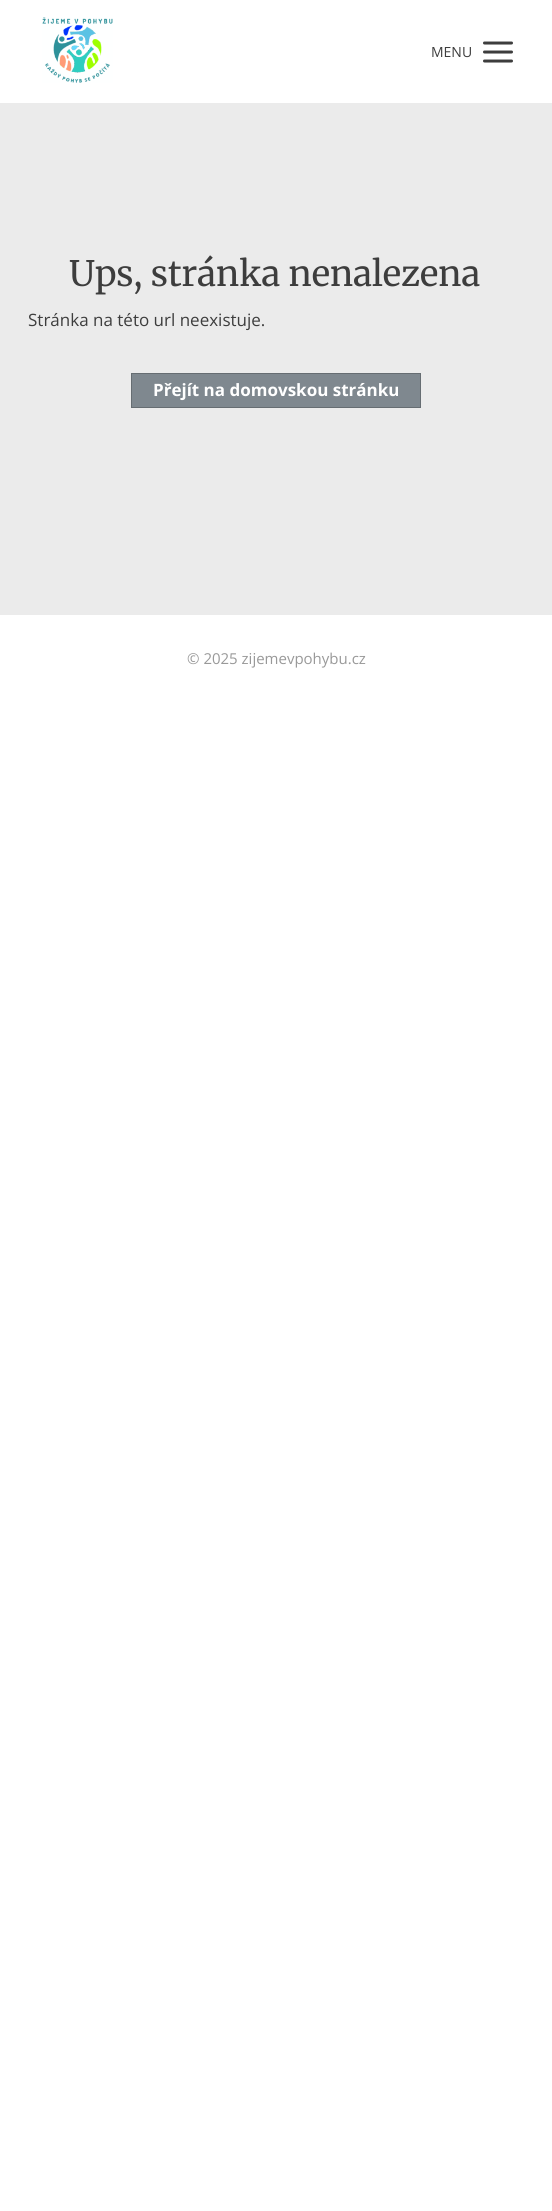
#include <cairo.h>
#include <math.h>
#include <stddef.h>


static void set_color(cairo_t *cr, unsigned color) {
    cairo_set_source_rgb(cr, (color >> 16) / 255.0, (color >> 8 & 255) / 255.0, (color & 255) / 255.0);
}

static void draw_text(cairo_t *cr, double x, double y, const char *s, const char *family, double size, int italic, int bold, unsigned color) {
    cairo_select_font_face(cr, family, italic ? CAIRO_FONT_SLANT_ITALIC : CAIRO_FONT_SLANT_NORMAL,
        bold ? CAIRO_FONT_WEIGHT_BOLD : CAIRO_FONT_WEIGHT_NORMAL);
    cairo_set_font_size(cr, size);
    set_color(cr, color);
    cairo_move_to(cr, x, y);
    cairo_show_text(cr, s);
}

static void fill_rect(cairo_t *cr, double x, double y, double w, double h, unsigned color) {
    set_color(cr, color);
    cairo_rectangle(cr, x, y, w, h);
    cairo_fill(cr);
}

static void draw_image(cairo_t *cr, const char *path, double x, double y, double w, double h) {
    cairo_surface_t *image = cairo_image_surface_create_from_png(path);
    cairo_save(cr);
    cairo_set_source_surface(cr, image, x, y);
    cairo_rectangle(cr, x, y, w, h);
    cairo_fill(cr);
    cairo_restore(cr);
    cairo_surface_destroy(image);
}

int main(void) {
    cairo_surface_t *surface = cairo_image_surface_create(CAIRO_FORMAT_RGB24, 552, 2211);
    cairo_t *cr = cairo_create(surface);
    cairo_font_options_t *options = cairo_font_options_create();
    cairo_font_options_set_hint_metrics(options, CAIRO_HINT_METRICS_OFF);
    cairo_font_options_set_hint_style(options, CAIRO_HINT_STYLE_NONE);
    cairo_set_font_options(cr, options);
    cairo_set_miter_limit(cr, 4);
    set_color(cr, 0xFFFFFF);
    cairo_paint(cr);
    draw_image(cr, "assets/img1.png", 42, 17, 71, 66);
    draw_text(cr, 431, 57, "MENU", "Open Sans", 14, 0, 0, 0x3D3D3D);
    draw_image(cr, "assets/img2.png", 483, 41, 30, 22);
    fill_rect(cr, 0, 103, 552, 512, 0xEBEBEB);
    draw_text(cr, 69, 286, "Ups, stránka nenalezena", "Merriweather", 35, 0, 0, 0x3D3D3D);
    draw_text(cr, 28, 326, "Stránka na této url neexistuje.", "Open Sans", 17, 0, 0, 0x3D3D3D);
    set_color(cr, 0x7F888F);
    cairo_rectangle(cr, 131.5, 373.5, 289, 34);
    cairo_fill_preserve(cr);
    set_color(cr, 0x666D72);
    cairo_set_line_width(cr, 1);
    cairo_stroke(cr);
    draw_text(cr, 153, 396, "Přejít na domovskou stránku", "Open Sans", 17, 0, 1, 0xFFFFFF);
    draw_text(cr, 187, 664, "© 2025 zijemevpohybu.cz", "Open Sans", 15, 0, 0, 0x999999);
    cairo_surface_write_to_png(surface, "output.png");
    cairo_font_options_destroy(options);
    cairo_destroy(cr);
    cairo_surface_destroy(surface);
    return 0;
}
